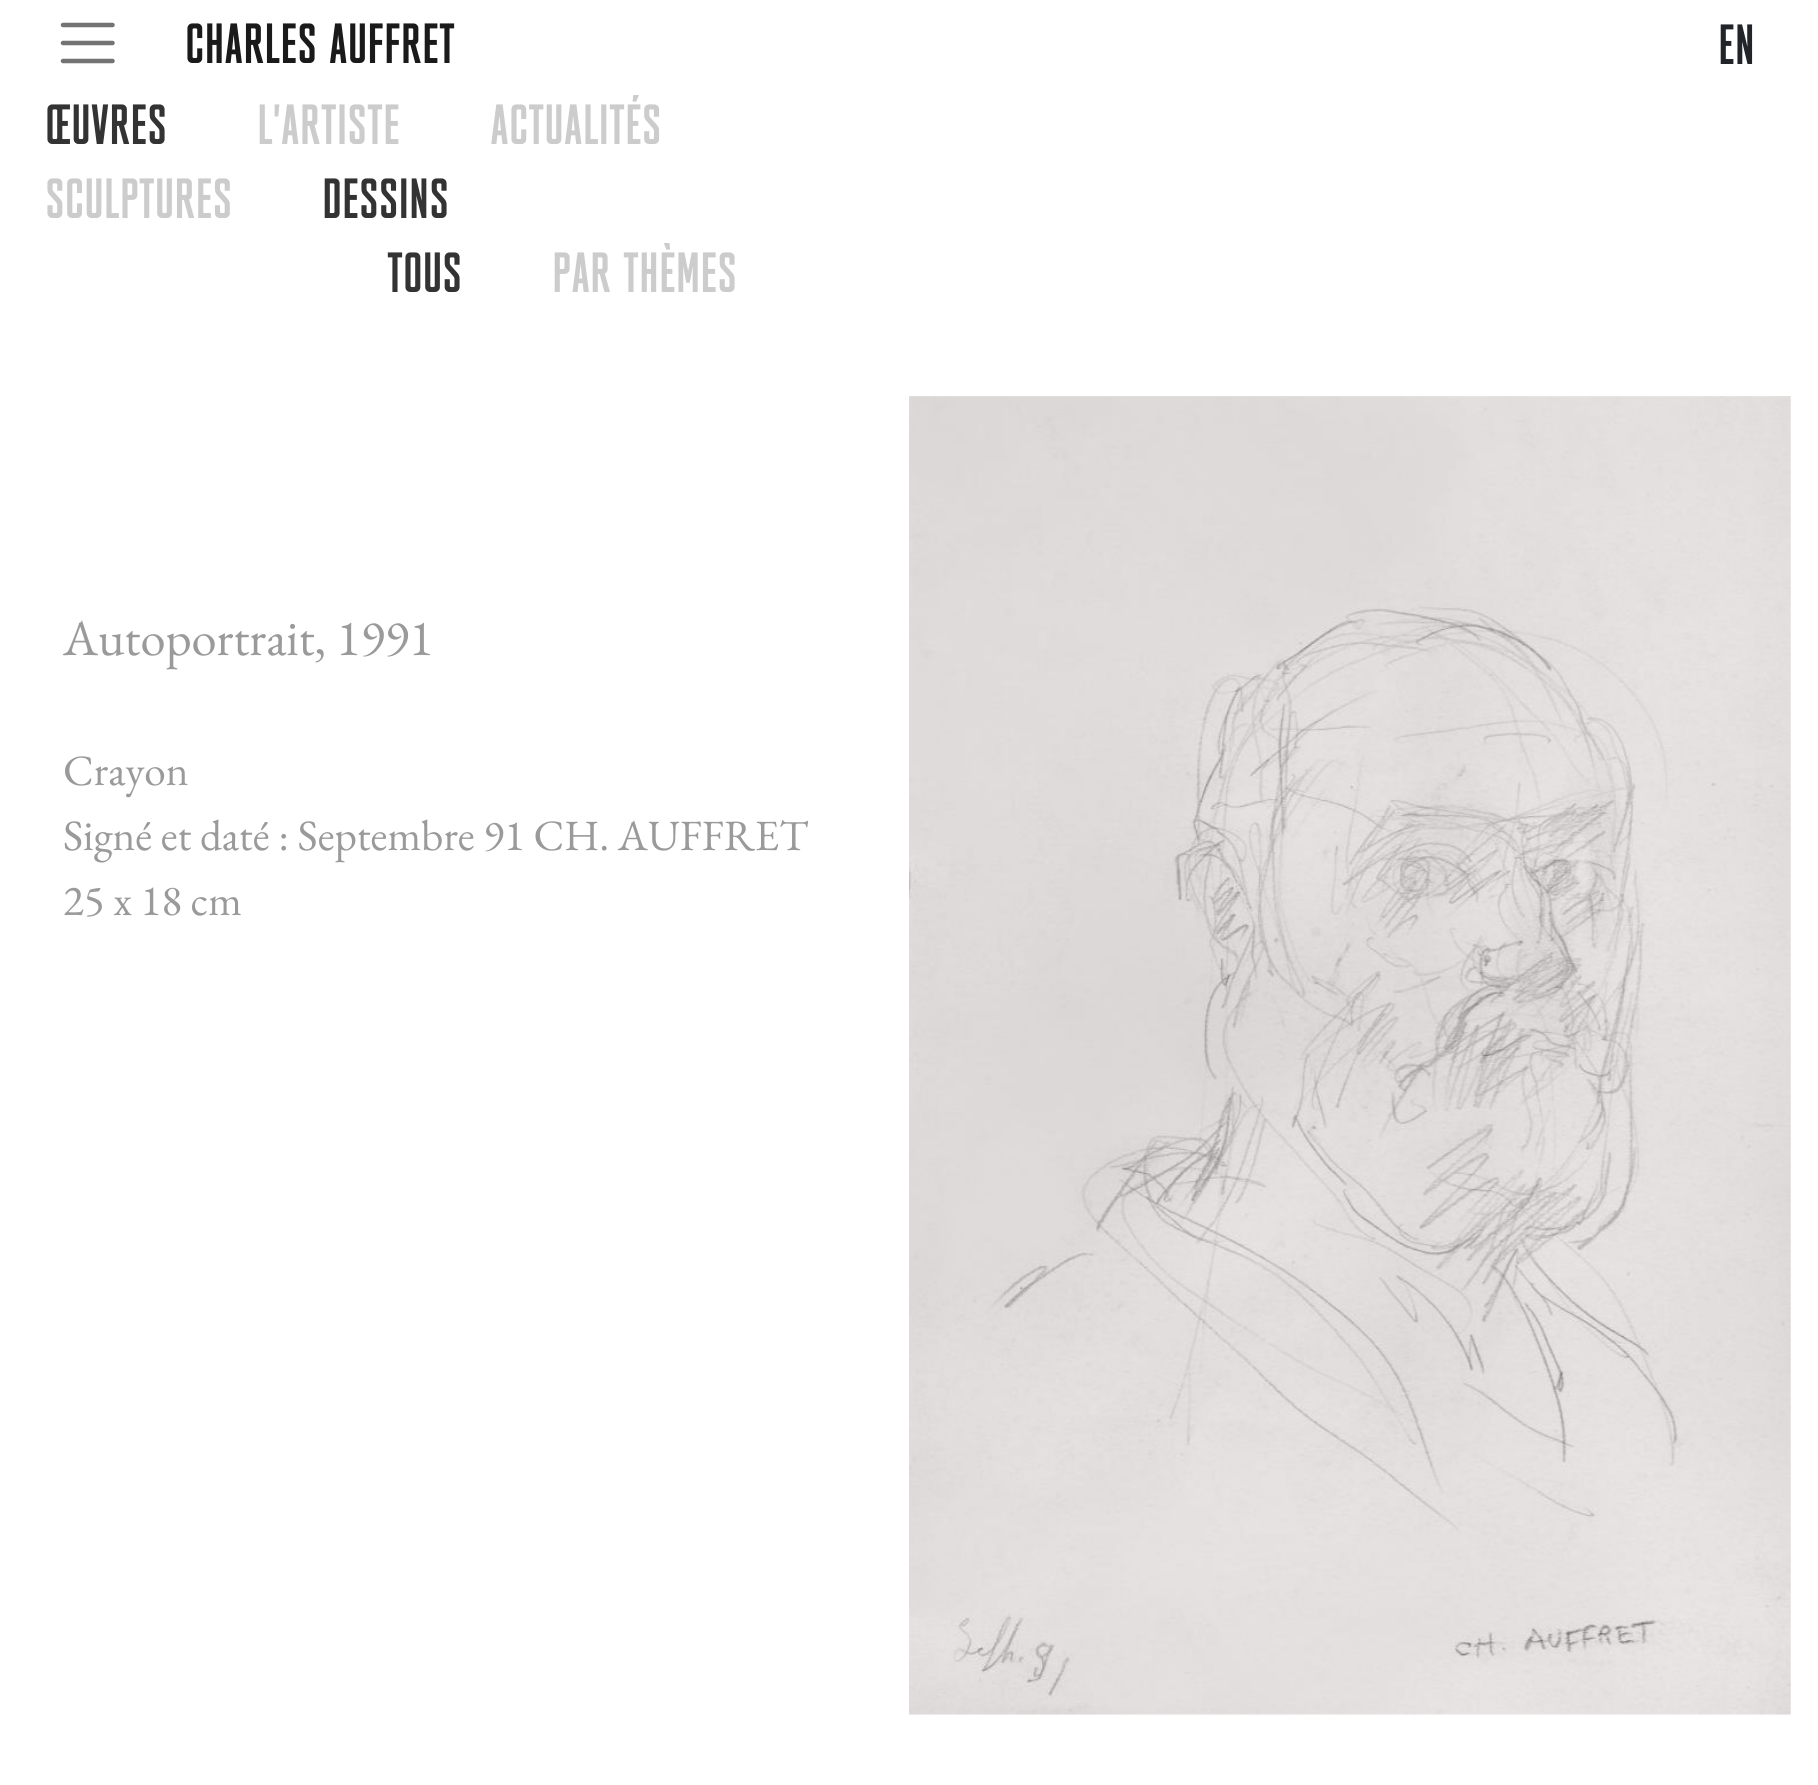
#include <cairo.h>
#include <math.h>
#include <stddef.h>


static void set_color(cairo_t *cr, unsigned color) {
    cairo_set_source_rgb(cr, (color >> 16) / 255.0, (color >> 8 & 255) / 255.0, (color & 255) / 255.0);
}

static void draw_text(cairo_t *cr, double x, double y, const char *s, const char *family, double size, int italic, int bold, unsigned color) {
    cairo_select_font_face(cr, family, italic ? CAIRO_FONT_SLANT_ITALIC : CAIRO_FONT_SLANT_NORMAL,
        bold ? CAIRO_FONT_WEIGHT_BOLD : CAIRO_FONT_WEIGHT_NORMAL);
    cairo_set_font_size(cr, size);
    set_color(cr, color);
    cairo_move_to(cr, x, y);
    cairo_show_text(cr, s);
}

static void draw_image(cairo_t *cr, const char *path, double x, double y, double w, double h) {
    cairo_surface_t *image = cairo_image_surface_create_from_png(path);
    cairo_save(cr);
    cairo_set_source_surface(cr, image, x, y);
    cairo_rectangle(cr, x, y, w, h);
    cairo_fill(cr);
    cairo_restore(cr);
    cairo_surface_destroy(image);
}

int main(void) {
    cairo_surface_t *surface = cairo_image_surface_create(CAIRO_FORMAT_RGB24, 1818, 1785);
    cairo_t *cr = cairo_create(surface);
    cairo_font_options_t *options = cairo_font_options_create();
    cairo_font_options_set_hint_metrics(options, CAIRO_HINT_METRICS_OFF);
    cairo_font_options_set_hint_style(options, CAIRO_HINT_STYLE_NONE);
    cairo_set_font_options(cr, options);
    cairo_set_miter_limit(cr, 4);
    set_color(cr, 0xFFFFFF);
    cairo_paint(cr);
    cairo_new_path(cr);
    cairo_move_to(cr, 63, 25);
    cairo_line_to(cr, 112.5, 25);
    cairo_move_to(cr, 63, 43);
    cairo_line_to(cr, 112.5, 43);
    cairo_move_to(cr, 63, 61);
    cairo_line_to(cr, 112.5, 61);
    set_color(cr, 0x737373);
    cairo_set_line_width(cr, 4.5);
    cairo_set_line_cap(cr, CAIRO_LINE_CAP_ROUND);
    cairo_stroke(cr);
    draw_text(cr, 185, 63, "CHARLES AUFFRET", "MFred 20", 54, 0, 0, 0x1A1A1A);
    draw_text(cr, 1718, 64, "en", "MFred 20", 54, 0, 0, 0x212529);
    draw_text(cr, 45, 144, "œUVRES", "MFred 20", 54, 0, 0, 0x333333);
    draw_text(cr, 257, 144, "L'ARTISTE", "MFred 20", 54, 0, 0, 0xCCCCCC);
    draw_text(cr, 490, 144, "ACTUALITéS", "MFred 20", 54, 0, 0, 0xCCCCCC);
    draw_text(cr, 45, 218, "SCULPTURES", "MFred 20", 54, 0, 0, 0xCCCCCC);
    draw_text(cr, 322, 218, "DESSINS", "MFred 20", 54, 0, 0, 0x333333);
    draw_text(cr, 387, 292, "TOUS", "MFred 20", 54, 0, 0, 0x333333);
    draw_text(cr, 552, 292, "PAR THèMES", "MFred 20", 54, 0, 0, 0xCCCCCC);
    draw_text(cr, 63, 655, "Autoportrait, 1991", "EB Garamond", 50.5, 0, 0, 0x9A9A9A);
    draw_text(cr, 63, 785, "Crayon", "EB Garamond", 43.25, 0, 0, 0x9A9A9A);
    draw_text(cr, 63, 850, "Signé et daté : Septembre 91 CH. AUFFRET", "EB Garamond", 43.25, 0, 0, 0x9A9A9A);
    draw_text(cr, 63, 915, "25 x 18 cm", "EB Garamond", 43.25, 0, 0, 0x9A9A9A);
    draw_image(cr, "assets/img1.png", 909, 396, 882, 1319);
    cairo_surface_write_to_png(surface, "output.png");
    cairo_font_options_destroy(options);
    cairo_destroy(cr);
    cairo_surface_destroy(surface);
    return 0;
}
